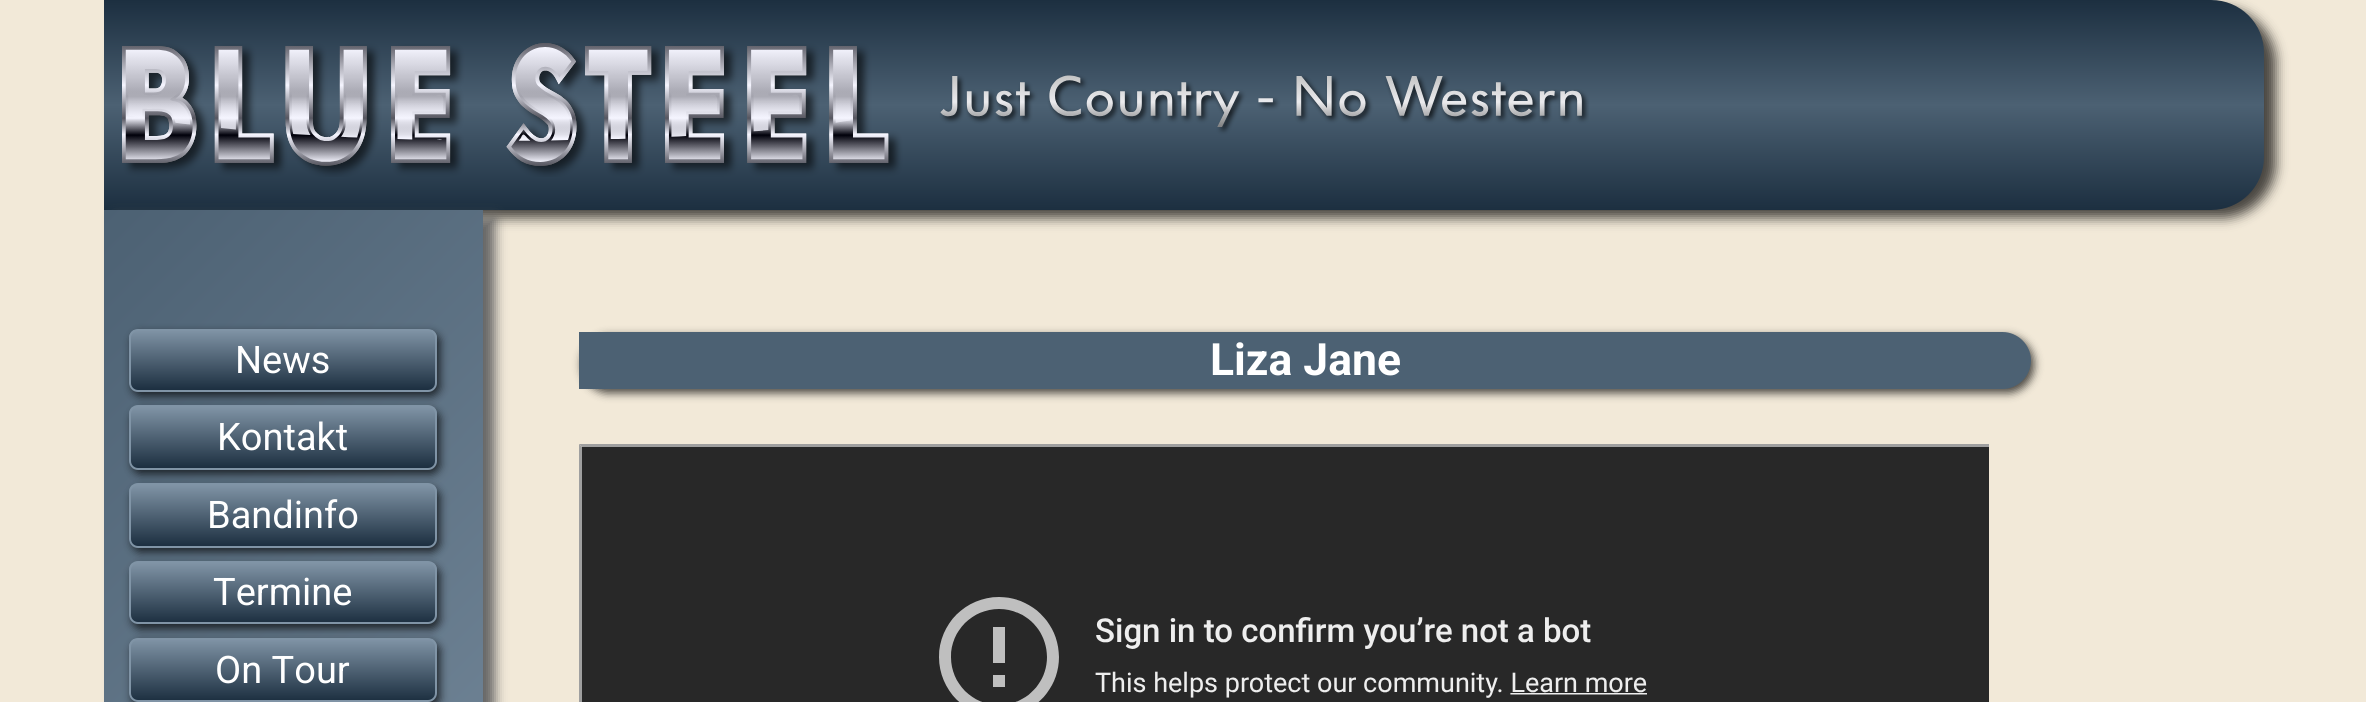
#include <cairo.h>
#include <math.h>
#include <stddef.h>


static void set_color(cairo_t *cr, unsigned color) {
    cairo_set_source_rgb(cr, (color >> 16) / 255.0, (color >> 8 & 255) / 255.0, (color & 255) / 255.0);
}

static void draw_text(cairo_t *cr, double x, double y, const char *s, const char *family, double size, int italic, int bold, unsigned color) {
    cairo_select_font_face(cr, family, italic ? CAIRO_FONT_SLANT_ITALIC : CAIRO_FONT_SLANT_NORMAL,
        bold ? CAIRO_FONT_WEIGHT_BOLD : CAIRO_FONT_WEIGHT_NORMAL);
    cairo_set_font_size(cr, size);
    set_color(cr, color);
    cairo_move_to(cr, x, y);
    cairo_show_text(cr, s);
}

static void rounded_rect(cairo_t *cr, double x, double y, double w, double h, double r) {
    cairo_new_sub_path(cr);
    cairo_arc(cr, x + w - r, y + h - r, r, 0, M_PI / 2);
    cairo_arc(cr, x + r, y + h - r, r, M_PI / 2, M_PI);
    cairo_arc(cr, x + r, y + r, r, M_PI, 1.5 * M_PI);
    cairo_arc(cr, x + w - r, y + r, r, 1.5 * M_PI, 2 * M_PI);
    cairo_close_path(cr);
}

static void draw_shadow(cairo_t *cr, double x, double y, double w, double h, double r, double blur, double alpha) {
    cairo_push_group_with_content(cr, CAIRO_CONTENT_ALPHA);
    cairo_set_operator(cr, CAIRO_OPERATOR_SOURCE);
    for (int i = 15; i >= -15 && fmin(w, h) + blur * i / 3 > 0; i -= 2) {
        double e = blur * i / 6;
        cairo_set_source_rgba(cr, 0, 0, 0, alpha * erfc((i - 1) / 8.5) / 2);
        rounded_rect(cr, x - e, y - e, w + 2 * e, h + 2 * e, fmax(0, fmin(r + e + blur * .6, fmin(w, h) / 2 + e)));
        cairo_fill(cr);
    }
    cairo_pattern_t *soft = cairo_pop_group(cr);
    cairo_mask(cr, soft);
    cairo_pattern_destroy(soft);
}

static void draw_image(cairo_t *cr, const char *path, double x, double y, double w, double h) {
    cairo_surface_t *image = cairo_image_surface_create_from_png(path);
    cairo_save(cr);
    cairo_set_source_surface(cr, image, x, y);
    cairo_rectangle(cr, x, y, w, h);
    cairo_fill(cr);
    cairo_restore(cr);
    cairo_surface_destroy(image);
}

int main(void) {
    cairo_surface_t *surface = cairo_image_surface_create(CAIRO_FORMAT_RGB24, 2366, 702);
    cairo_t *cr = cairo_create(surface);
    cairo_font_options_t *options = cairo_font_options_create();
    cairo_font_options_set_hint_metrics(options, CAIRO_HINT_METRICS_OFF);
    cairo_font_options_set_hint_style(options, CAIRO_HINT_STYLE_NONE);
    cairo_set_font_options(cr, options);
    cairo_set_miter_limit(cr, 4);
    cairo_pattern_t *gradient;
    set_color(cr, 0xF2E9D8);
    cairo_paint(cr);
    set_color(cr, 0x000000);
    draw_shadow(cr, 116, 8, 2160, 210, 53, 6, 0.7);
    gradient = cairo_pattern_create_linear(1184, 0, 1184, 210);
    cairo_pattern_add_color_stop_rgba(gradient, 0, 0.11, 0.184, 0.251, 1);
    cairo_pattern_add_color_stop_rgba(gradient, 0.5, 0.298, 0.38, 0.451, 1);
    cairo_pattern_add_color_stop_rgba(gradient, 1, 0.11, 0.184, 0.251, 1);
    cairo_set_source(cr, gradient);
    cairo_pattern_destroy(gradient);
    cairo_new_path(cr);
    cairo_move_to(cr, 104, 0);
    cairo_line_to(cr, 2211, 0);
    cairo_curve_to(cr, 2240.5, 0, 2264, 23.5, 2264, 53);
    cairo_line_to(cr, 2264, 157);
    cairo_curve_to(cr, 2264, 186.5, 2240.5, 210, 2211, 210);
    cairo_line_to(cr, 104, 210);
    cairo_close_path(cr);
    cairo_fill(cr);
    draw_image(cr, "assets/img1.png", 122, 43, 1467, 134);
    set_color(cr, 0x666666);
    draw_shadow(cr, 116, 218, 379, 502, 0, 6, 1);
    gradient = cairo_pattern_create_linear(-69, 383, 656, 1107);
    cairo_pattern_add_color_stop_rgba(gradient, 0, 0.298, 0.38, 0.451, 1);
    cairo_pattern_add_color_stop_rgba(gradient, 1, 0.502, 0.58, 0.651, 1);
    cairo_set_source(cr, gradient);
    cairo_pattern_destroy(gradient);
    cairo_rectangle(cr, 104, 210, 379, 492);
    cairo_fill(cr);
    set_color(cr, 0x000000);
    draw_shadow(cr, 132, 333, 308, 63, 9, 4.5, 0.7);
    cairo_save(cr);
    rounded_rect(cr, 129, 329, 308, 63, 9);
    cairo_clip(cr);
    gradient = cairo_pattern_create_linear(283, 330, 283, 390);
    cairo_pattern_add_color_stop_rgba(gradient, 0, 0.502, 0.58, 0.651, 1);
    cairo_pattern_add_color_stop_rgba(gradient, 1, 0.11, 0.184, 0.251, 1);
    cairo_set_source(cr, gradient);
    cairo_pattern_destroy(gradient);
    cairo_rectangle(cr, 129, 330, 308, 60);
    cairo_fill(cr);
    cairo_restore(cr);
    rounded_rect(cr, 130, 330, 306, 61, 8);
    set_color(cr, 0x8094A6);
    cairo_stroke(cr);
    draw_text(cr, 235, 373, "News", "Roboto", 38, 0, 0, 0xFFFFFF);
    set_color(cr, 0x000000);
    draw_shadow(cr, 132, 410, 308, 64, 9, 4.5, 0.7);
    cairo_save(cr);
    rounded_rect(cr, 129, 405, 308, 65, 9);
    cairo_clip(cr);
    gradient = cairo_pattern_create_linear(283, 407, 283, 468);
    cairo_pattern_add_color_stop_rgba(gradient, 0, 0.502, 0.58, 0.651, 1);
    cairo_pattern_add_color_stop_rgba(gradient, 1, 0.11, 0.184, 0.251, 1);
    cairo_set_source(cr, gradient);
    cairo_pattern_destroy(gradient);
    cairo_rectangle(cr, 129, 407, 308, 61);
    cairo_fill(cr);
    cairo_restore(cr);
    rounded_rect(cr, 130, 406, 306, 63, 8);
    set_color(cr, 0x8094A6);
    cairo_stroke(cr);
    draw_text(cr, 217, 450, "Kontakt", "Roboto", 38, 0, 0, 0xFFFFFF);
    set_color(cr, 0x000000);
    draw_shadow(cr, 132, 488, 308, 64, 9, 4.5, 0.7);
    cairo_save(cr);
    rounded_rect(cr, 129, 483, 308, 65, 9);
    cairo_clip(cr);
    gradient = cairo_pattern_create_linear(283, 485, 283, 546);
    cairo_pattern_add_color_stop_rgba(gradient, 0, 0.502, 0.58, 0.651, 1);
    cairo_pattern_add_color_stop_rgba(gradient, 1, 0.11, 0.184, 0.251, 1);
    cairo_set_source(cr, gradient);
    cairo_pattern_destroy(gradient);
    cairo_rectangle(cr, 129, 485, 308, 61);
    cairo_fill(cr);
    cairo_restore(cr);
    rounded_rect(cr, 130, 484, 306, 63, 8);
    set_color(cr, 0x8094A6);
    cairo_stroke(cr);
    draw_text(cr, 207, 528, "Bandinfo", "Roboto", 38, 0, 0, 0xFFFFFF);
    set_color(cr, 0x000000);
    draw_shadow(cr, 132, 566, 308, 63, 9, 4.5, 0.7);
    cairo_save(cr);
    rounded_rect(cr, 129, 561, 308, 63, 9);
    cairo_clip(cr);
    gradient = cairo_pattern_create_linear(283, 563, 283, 623);
    cairo_pattern_add_color_stop_rgba(gradient, 0, 0.502, 0.58, 0.651, 1);
    cairo_pattern_add_color_stop_rgba(gradient, 1, 0.11, 0.184, 0.251, 1);
    cairo_set_source(cr, gradient);
    cairo_pattern_destroy(gradient);
    cairo_rectangle(cr, 129, 563, 308, 60);
    cairo_fill(cr);
    cairo_restore(cr);
    rounded_rect(cr, 130, 562, 306, 61, 8);
    set_color(cr, 0x8094A6);
    cairo_stroke(cr);
    draw_text(cr, 213, 605, "Termine", "Roboto", 38, 0, 0, 0xFFFFFF);
    set_color(cr, 0x000000);
    draw_shadow(cr, 132, 642, 308, 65, 9, 4.5, 0.7);
    cairo_save(cr);
    rounded_rect(cr, 129, 638, 308, 64, 9);
    cairo_clip(cr);
    gradient = cairo_pattern_create_linear(283, 639, 283, 701);
    cairo_pattern_add_color_stop_rgba(gradient, 0, 0.502, 0.58, 0.651, 1);
    cairo_pattern_add_color_stop_rgba(gradient, 1, 0.11, 0.184, 0.251, 1);
    cairo_set_source(cr, gradient);
    cairo_pattern_destroy(gradient);
    cairo_rectangle(cr, 129, 639, 308, 62);
    cairo_fill(cr);
    cairo_restore(cr);
    rounded_rect(cr, 130, 639, 306, 62, 8);
    set_color(cr, 0x8094A6);
    cairo_stroke(cr);
    draw_text(cr, 215, 683, "On Tour", "Roboto", 38, 0, 0, 0xFFFFFF);
    set_color(cr, 0x000000);
    draw_shadow(cr, 582, 336, 1452, 57, 28.5, 4.5, 0.7);
    set_color(cr, 0x4C6173);
    cairo_new_path(cr);
    cairo_move_to(cr, 579, 332);
    cairo_line_to(cr, 2002.5, 332);
    cairo_curve_to(cr, 2018, 332, 2031, 345, 2031, 360.5);
    cairo_curve_to(cr, 2031, 376, 2018, 389, 2002.5, 389);
    cairo_line_to(cr, 579, 389);
    cairo_close_path(cr);
    cairo_fill(cr);
    draw_text(cr, 1210, 375, "Liza Jane", "Roboto", 44.5, 0, 1, 0xFFFFFF);
    cairo_save(cr);
    cairo_rectangle(cr, 579, 444, 1410, 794);
    cairo_clip(cr);
    set_color(cr, 0x9F9F9F);
    cairo_new_path(cr);
    cairo_move_to(cr, 579, 444);
    cairo_line_to(cr, 1995, 444);
    cairo_line_to(cr, 1992, 447);
    cairo_line_to(cr, 582, 447);
    cairo_close_path(cr);
    cairo_fill(cr);
    cairo_restore(cr);
    set_color(cr, 0x9F9F9F);
    cairo_new_path(cr);
    cairo_move_to(cr, 579, 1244);
    cairo_line_to(cr, 579, 444);
    cairo_line_to(cr, 582, 447);
    cairo_line_to(cr, 582, 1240);
    cairo_close_path(cr);
    cairo_fill(cr);
    draw_image(cr, "assets/img2.png", 582, 447, 1407, 255);
    cairo_surface_write_to_png(surface, "output.png");
    cairo_font_options_destroy(options);
    cairo_destroy(cr);
    cairo_surface_destroy(surface);
    return 0;
}
